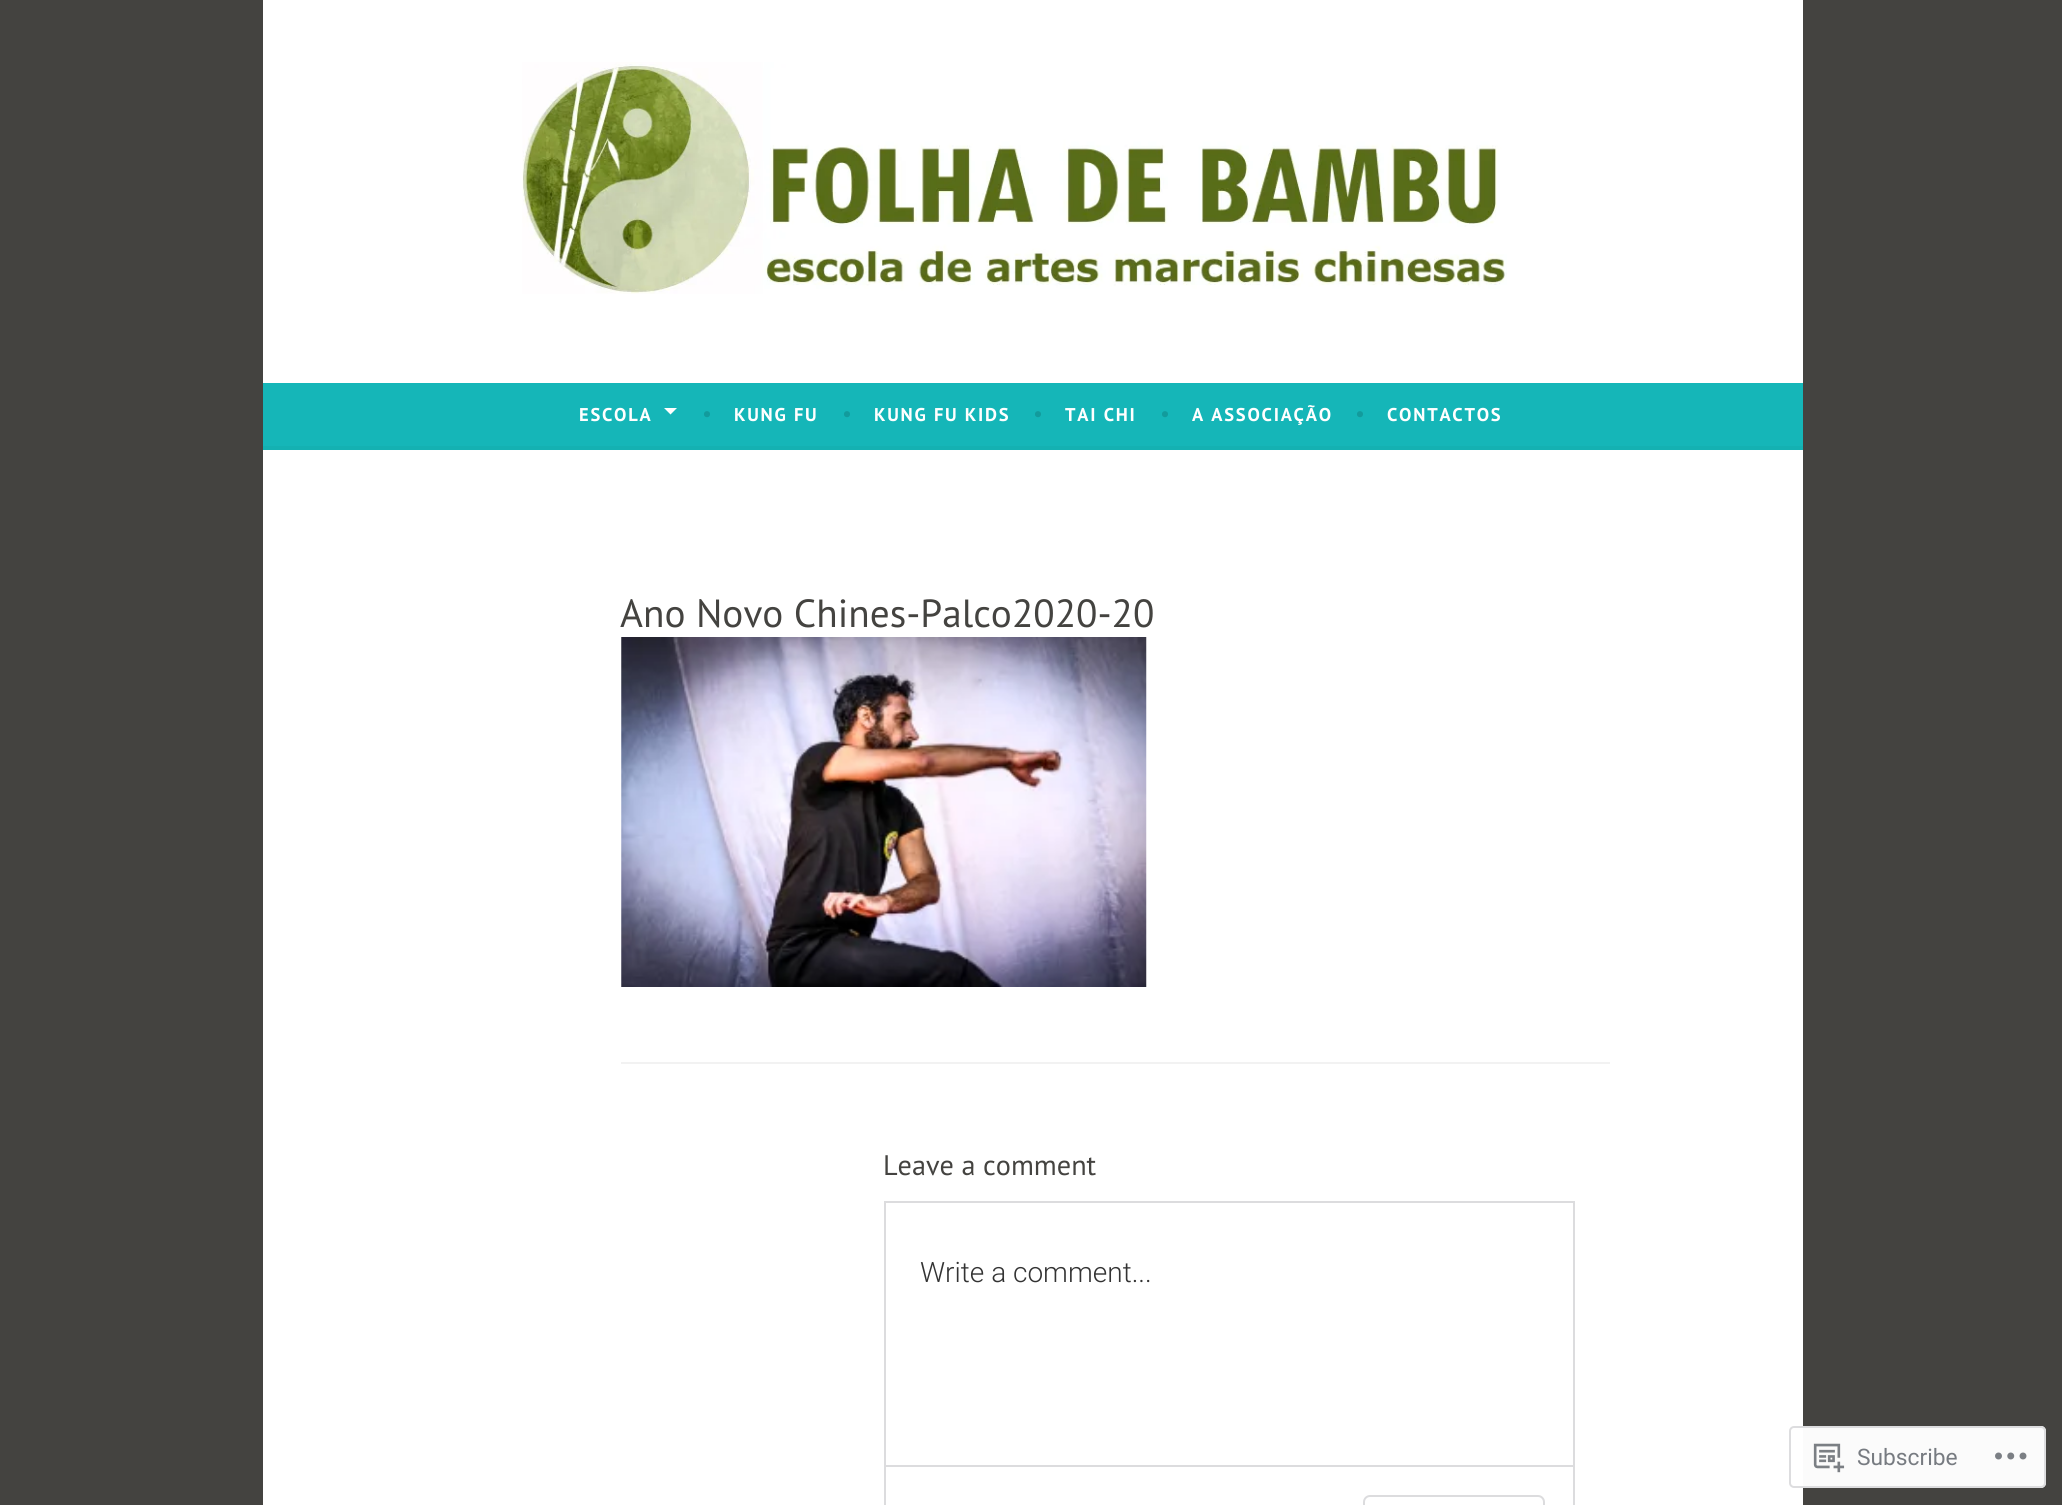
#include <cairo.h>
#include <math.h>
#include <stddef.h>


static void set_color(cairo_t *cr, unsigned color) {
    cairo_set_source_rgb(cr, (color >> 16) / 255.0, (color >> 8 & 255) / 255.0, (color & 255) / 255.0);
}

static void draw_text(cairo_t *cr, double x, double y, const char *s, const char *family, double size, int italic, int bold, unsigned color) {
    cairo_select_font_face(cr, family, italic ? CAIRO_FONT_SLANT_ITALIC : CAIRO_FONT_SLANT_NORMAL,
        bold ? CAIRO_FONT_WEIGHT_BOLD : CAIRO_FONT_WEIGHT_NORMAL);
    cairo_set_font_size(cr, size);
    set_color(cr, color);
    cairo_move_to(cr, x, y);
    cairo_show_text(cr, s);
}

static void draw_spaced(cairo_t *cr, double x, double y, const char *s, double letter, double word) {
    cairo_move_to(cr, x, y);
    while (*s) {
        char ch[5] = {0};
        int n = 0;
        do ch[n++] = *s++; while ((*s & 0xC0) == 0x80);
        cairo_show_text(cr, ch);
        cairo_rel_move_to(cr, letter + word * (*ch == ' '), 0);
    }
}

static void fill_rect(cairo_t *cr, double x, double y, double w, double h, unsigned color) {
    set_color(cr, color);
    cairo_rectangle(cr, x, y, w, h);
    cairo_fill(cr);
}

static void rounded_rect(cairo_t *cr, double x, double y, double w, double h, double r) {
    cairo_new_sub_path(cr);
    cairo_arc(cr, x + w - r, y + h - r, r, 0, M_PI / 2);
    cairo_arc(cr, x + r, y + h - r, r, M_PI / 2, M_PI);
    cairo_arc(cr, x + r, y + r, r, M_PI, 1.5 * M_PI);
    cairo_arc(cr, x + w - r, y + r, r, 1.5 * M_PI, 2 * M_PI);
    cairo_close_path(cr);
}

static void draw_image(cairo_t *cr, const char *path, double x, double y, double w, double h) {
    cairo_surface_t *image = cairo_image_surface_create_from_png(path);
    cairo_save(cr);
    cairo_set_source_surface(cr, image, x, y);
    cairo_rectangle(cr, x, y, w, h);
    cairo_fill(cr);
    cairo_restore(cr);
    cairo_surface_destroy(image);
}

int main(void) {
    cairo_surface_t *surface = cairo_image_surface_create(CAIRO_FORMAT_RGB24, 2062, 1505);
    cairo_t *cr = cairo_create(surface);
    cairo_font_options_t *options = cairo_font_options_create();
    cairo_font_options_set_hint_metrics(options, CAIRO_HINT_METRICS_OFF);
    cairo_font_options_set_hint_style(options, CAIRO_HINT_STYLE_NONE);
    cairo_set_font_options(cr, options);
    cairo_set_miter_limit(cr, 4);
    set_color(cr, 0x444340);
    cairo_paint(cr);
    fill_rect(cr, 263, 0, 1540, 383, 0xFFFFFF);
    draw_image(cr, "assets/img1.png", 522, 62, 985, 232);
    fill_rect(cr, 263, 383, 1540, 63, 0x15B6B8);
    fill_rect(cr, 263, 446, 1540, 4, 0x14B1B2);
    cairo_select_font_face(cr, "PT Sans", CAIRO_FONT_SLANT_NORMAL, CAIRO_FONT_WEIGHT_BOLD);
    cairo_set_font_size(cr, 18.5);
    set_color(cr, 0xFFFFFF);
    draw_spaced(cr, 579, 421, "ESCOLA", 1.75, 0);
    cairo_new_path(cr);
    cairo_move_to(cr, 664, 408);
    cairo_line_to(cr, 677, 408);
    cairo_line_to(cr, 670.5, 414.5);
    cairo_close_path(cr);
    cairo_fill(cr);
    draw_text(cr, 702, 421, "•", "PT Sans", 22, 0, 0, 0x129B9C);
    cairo_select_font_face(cr, "PT Sans", CAIRO_FONT_SLANT_NORMAL, CAIRO_FONT_WEIGHT_BOLD);
    cairo_set_font_size(cr, 18.5);
    set_color(cr, 0xFFFFFF);
    draw_spaced(cr, 734, 421, "KUNG FU", 1.75, 0);
    draw_text(cr, 842, 421, "•", "PT Sans", 22, 0, 0, 0x129B9C);
    cairo_select_font_face(cr, "PT Sans", CAIRO_FONT_SLANT_NORMAL, CAIRO_FONT_WEIGHT_BOLD);
    cairo_set_font_size(cr, 18.5);
    set_color(cr, 0xFFFFFF);
    draw_spaced(cr, 874, 421, "KUNG FU KIDS", 1.75, 0);
    draw_text(cr, 1033, 421, "•", "PT Sans", 22, 0, 0, 0x129B9C);
    cairo_select_font_face(cr, "PT Sans", CAIRO_FONT_SLANT_NORMAL, CAIRO_FONT_WEIGHT_BOLD);
    cairo_set_font_size(cr, 18.5);
    set_color(cr, 0xFFFFFF);
    draw_spaced(cr, 1065, 421, "TAI CHI", 1.75, 0);
    draw_text(cr, 1160, 421, "•", "PT Sans", 22, 0, 0, 0x129B9C);
    cairo_select_font_face(cr, "PT Sans", CAIRO_FONT_SLANT_NORMAL, CAIRO_FONT_WEIGHT_BOLD);
    cairo_set_font_size(cr, 18.5);
    set_color(cr, 0xFFFFFF);
    draw_spaced(cr, 1192, 421, "A ASSOCIAÇÃO", 1.75, 0);
    draw_text(cr, 1355, 421, "•", "PT Sans", 22, 0, 0, 0x129B9C);
    cairo_select_font_face(cr, "PT Sans", CAIRO_FONT_SLANT_NORMAL, CAIRO_FONT_WEIGHT_BOLD);
    cairo_set_font_size(cr, 18.5);
    set_color(cr, 0xFFFFFF);
    draw_spaced(cr, 1387, 421, "CONTACTOS", 1.75, 0);
    fill_rect(cr, 263, 450, 1540, 1055, 0xFFFFFF);
    draw_text(cr, 620, 627, "Ano Novo Chines-Palco2020-20", "PT Sans", 39.25, 0, 0, 0x444340);
    draw_image(cr, "assets/img2.png", 621, 637, 526, 350);
    fill_rect(cr, 621, 1062, 989, 2, 0xF2F2F2);
    draw_text(cr, 883, 1175, "Leave a comment", "PT Sans", 28.25, 0, 0, 0x444340);
    cairo_rectangle(cr, 885, 1202, 689, 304);
    set_color(cr, 0xDCDCDE);
    cairo_stroke(cr);
    draw_text(cr, 920, 1282, "Write a comment...", "Roboto Light", 28, 0, 0, 0x333333);
    fill_rect(cr, 886, 1465, 687, 2, 0xDCDCDE);
    rounded_rect(cr, 1364, 1496, 180, 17, 6);
    cairo_stroke(cr);
    cairo_set_source_rgba(cr, 1, 1, 1, 0.98);
    rounded_rect(cr, 1789, 1426, 257, 62, 5);
    cairo_fill(cr);
    rounded_rect(cr, 1790, 1427, 255, 60, 4);
    cairo_set_source_rgba(cr, 0.863, 0.863, 0.871, 0.98);
    cairo_stroke(cr);
    draw_image(cr, "assets/img3.png", 1813, 1443, 32, 30);
    draw_text(cr, 1857, 1465, "Subscribe", "Roboto", 22.75, 0, 0, 0x777B81);
    draw_image(cr, "assets/img4.png", 1995, 1452, 32, 8);
    cairo_surface_write_to_png(surface, "output.png");
    cairo_font_options_destroy(options);
    cairo_destroy(cr);
    cairo_surface_destroy(surface);
    return 0;
}
